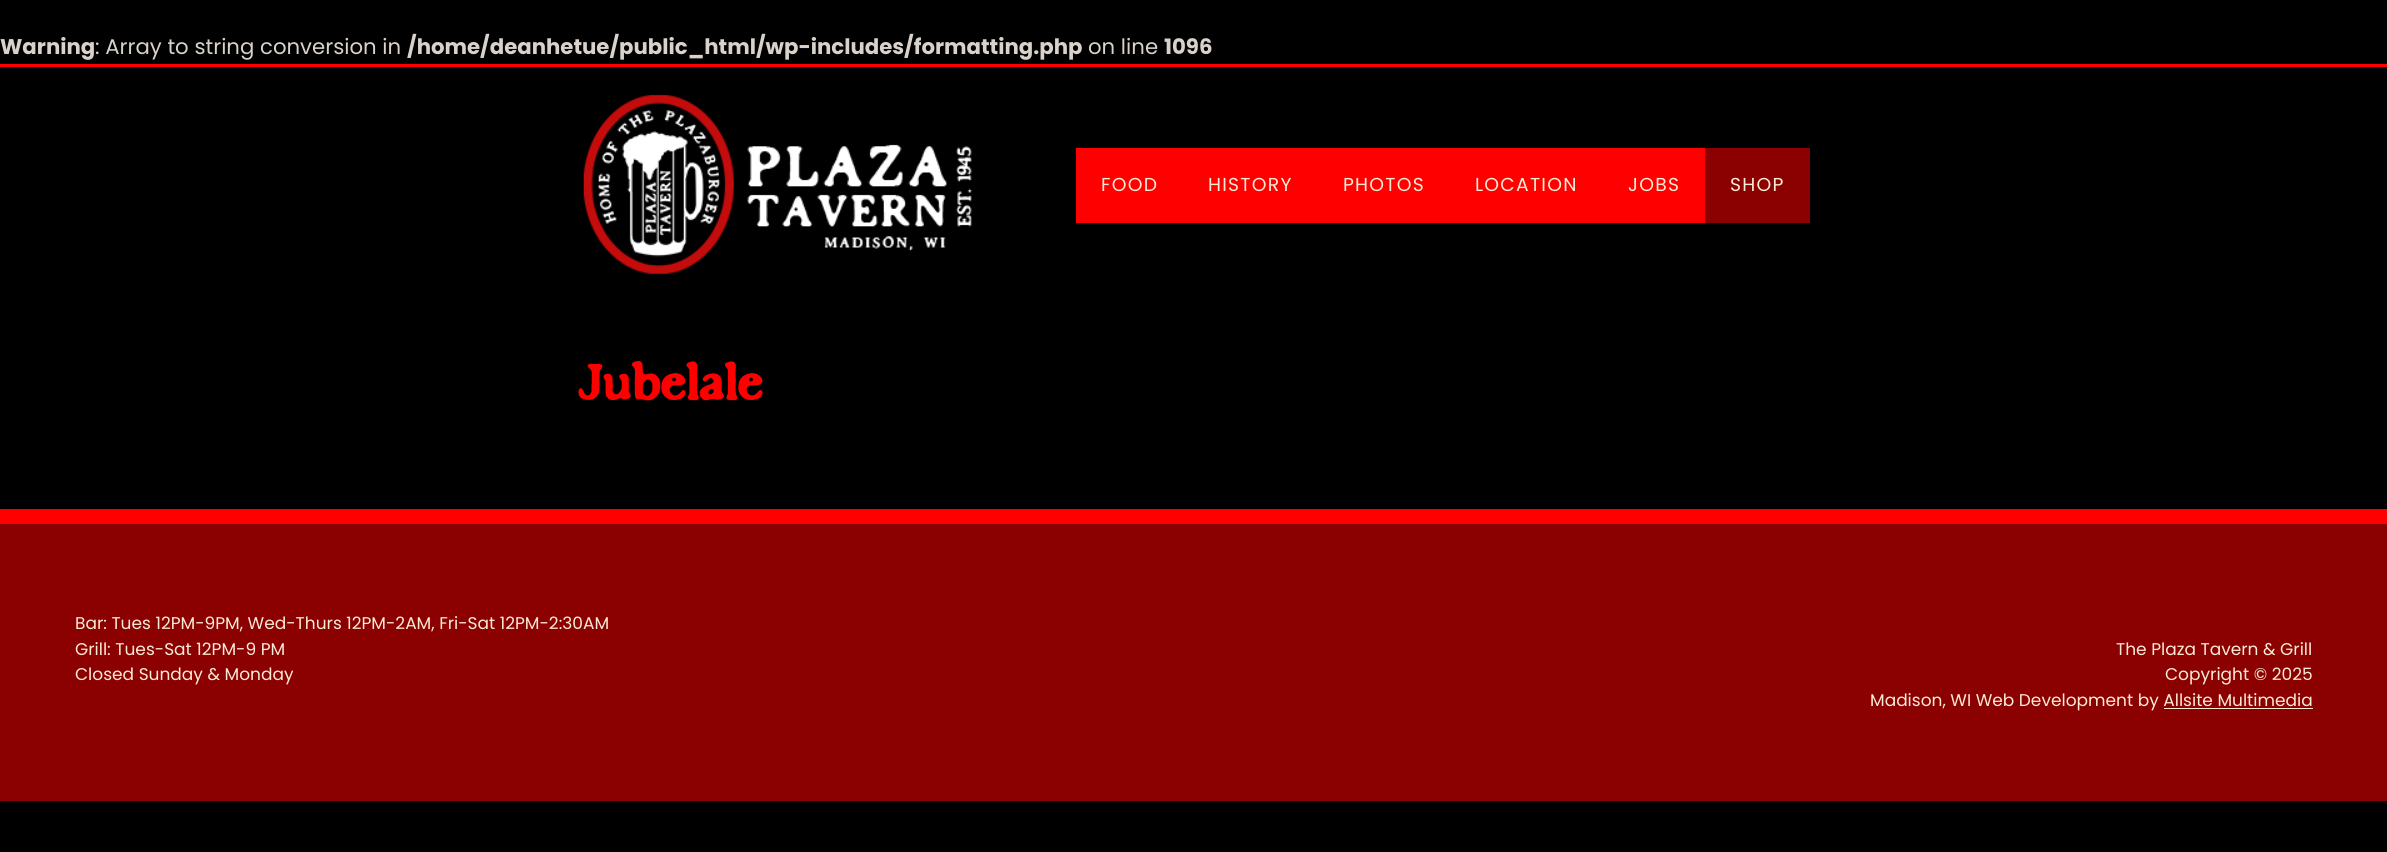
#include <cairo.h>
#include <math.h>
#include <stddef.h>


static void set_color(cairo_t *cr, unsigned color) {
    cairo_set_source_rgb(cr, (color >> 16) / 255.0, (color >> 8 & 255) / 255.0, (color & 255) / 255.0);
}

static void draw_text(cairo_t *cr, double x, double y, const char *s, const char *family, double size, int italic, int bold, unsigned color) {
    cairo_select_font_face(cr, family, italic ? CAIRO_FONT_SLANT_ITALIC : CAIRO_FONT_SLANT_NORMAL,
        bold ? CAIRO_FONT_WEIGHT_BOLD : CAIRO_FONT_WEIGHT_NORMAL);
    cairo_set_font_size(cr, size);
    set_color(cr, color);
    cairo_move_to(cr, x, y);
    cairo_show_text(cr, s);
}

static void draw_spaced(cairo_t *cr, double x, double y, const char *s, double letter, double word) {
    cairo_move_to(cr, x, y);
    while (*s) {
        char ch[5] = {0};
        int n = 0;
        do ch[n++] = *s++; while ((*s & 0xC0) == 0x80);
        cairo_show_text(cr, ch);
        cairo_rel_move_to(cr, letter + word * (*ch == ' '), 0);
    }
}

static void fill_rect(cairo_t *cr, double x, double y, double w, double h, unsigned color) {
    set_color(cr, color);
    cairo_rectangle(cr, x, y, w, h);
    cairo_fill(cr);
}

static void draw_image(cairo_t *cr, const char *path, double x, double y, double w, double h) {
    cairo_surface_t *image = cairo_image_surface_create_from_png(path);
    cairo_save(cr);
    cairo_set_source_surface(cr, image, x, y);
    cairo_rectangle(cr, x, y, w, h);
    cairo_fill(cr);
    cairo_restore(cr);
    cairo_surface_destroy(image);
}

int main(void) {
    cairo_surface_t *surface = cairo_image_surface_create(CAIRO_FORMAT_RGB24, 2387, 852);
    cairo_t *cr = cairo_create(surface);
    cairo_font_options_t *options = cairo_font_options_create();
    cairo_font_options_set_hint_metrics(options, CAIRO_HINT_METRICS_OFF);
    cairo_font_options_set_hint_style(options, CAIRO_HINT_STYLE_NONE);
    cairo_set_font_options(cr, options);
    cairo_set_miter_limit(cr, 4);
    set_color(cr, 0x000000);
    cairo_paint(cr);
    draw_text(cr, 0, 54, "Warning", "Poppins", 21.25, 0, 1, 0xD9D2CB);
    draw_text(cr, 95, 54, ": Array to string conversion in", "Poppins", 21.25, 0, 0, 0xD9D2CB);
    draw_text(cr, 407, 54, "/home/deanhetue/public_html/wp-includes/formatting.php", "Poppins", 21.25, 0, 1, 0xD9D2CB);
    draw_text(cr, 1088, 54, "on line", "Poppins", 21.25, 0, 0, 0xD9D2CB);
    draw_text(cr, 1164, 54, "1096", "Poppins", 21.25, 0, 1, 0xD9D2CB);
    fill_rect(cr, 0, 64, 2387, 3, 0xFF0000);
    draw_image(cr, "assets/img1.png", 583, 94, 389, 180);
    fill_rect(cr, 1076, 148, 629, 75, 0xFF0000);
    cairo_select_font_face(cr, "Poppins", CAIRO_FONT_SLANT_NORMAL, CAIRO_FONT_WEIGHT_NORMAL);
    cairo_set_font_size(cr, 18.75);
    set_color(cr, 0xFAEBD7);
    draw_spaced(cr, 1101, 191, "FOOD", 1.25, 0);
    draw_spaced(cr, 1208, 191, "HISTORY", 1.25, 0);
    draw_spaced(cr, 1343, 191, "PHOTOS", 1.25, 0);
    draw_spaced(cr, 1475, 191, "LOCATION", 1.25, 0);
    draw_spaced(cr, 1628, 191, "JOBS", 1.25, 0);
    fill_rect(cr, 1705, 148, 105, 75, 0x8B0000);
    set_color(cr, 0xFAEBD7);
    draw_spaced(cr, 1730, 191, "SHOP", 1.25, 0);
    draw_text(cr, 578, 400, "Jubelale", "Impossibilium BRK", 52.5, 0, 0, 0xFF0000);
    fill_rect(cr, 0, 524, 2387, 277, 0x8B0000);
    fill_rect(cr, 0, 509, 2387, 15, 0xFF0000);
    draw_text(cr, 75, 629, "Bar: Tues 12PM-9PM, Wed-Thurs 12PM-2AM, Fri-Sat 12PM-2:30AM", "Poppins", 17, 0, 0, 0xFAEBD7);
    draw_text(cr, 75, 655, "Grill: Tues-Sat 12PM-9 PM", "Poppins", 17, 0, 0, 0xFAEBD7);
    draw_text(cr, 75, 680, "Closed Sunday & Monday", "Poppins", 17, 0, 0, 0xFAEBD7);
    draw_text(cr, 2116, 655, "The Plaza Tavern & Grill", "Poppins", 17, 0, 0, 0xFAEBD7);
    draw_text(cr, 2165, 680, "Copyright © 2025", "Poppins", 17, 0, 0, 0xFAEBD7);
    draw_text(cr, 1870, 706, "Madison, WI Web Development by Allsite Multimedia", "Poppins", 17, 0, 0, 0xFAEBD7);
    fill_rect(cr, 2164, 708, 149, 1, 0xFAEBD7);
    cairo_surface_write_to_png(surface, "output.png");
    cairo_font_options_destroy(options);
    cairo_destroy(cr);
    cairo_surface_destroy(surface);
    return 0;
}
